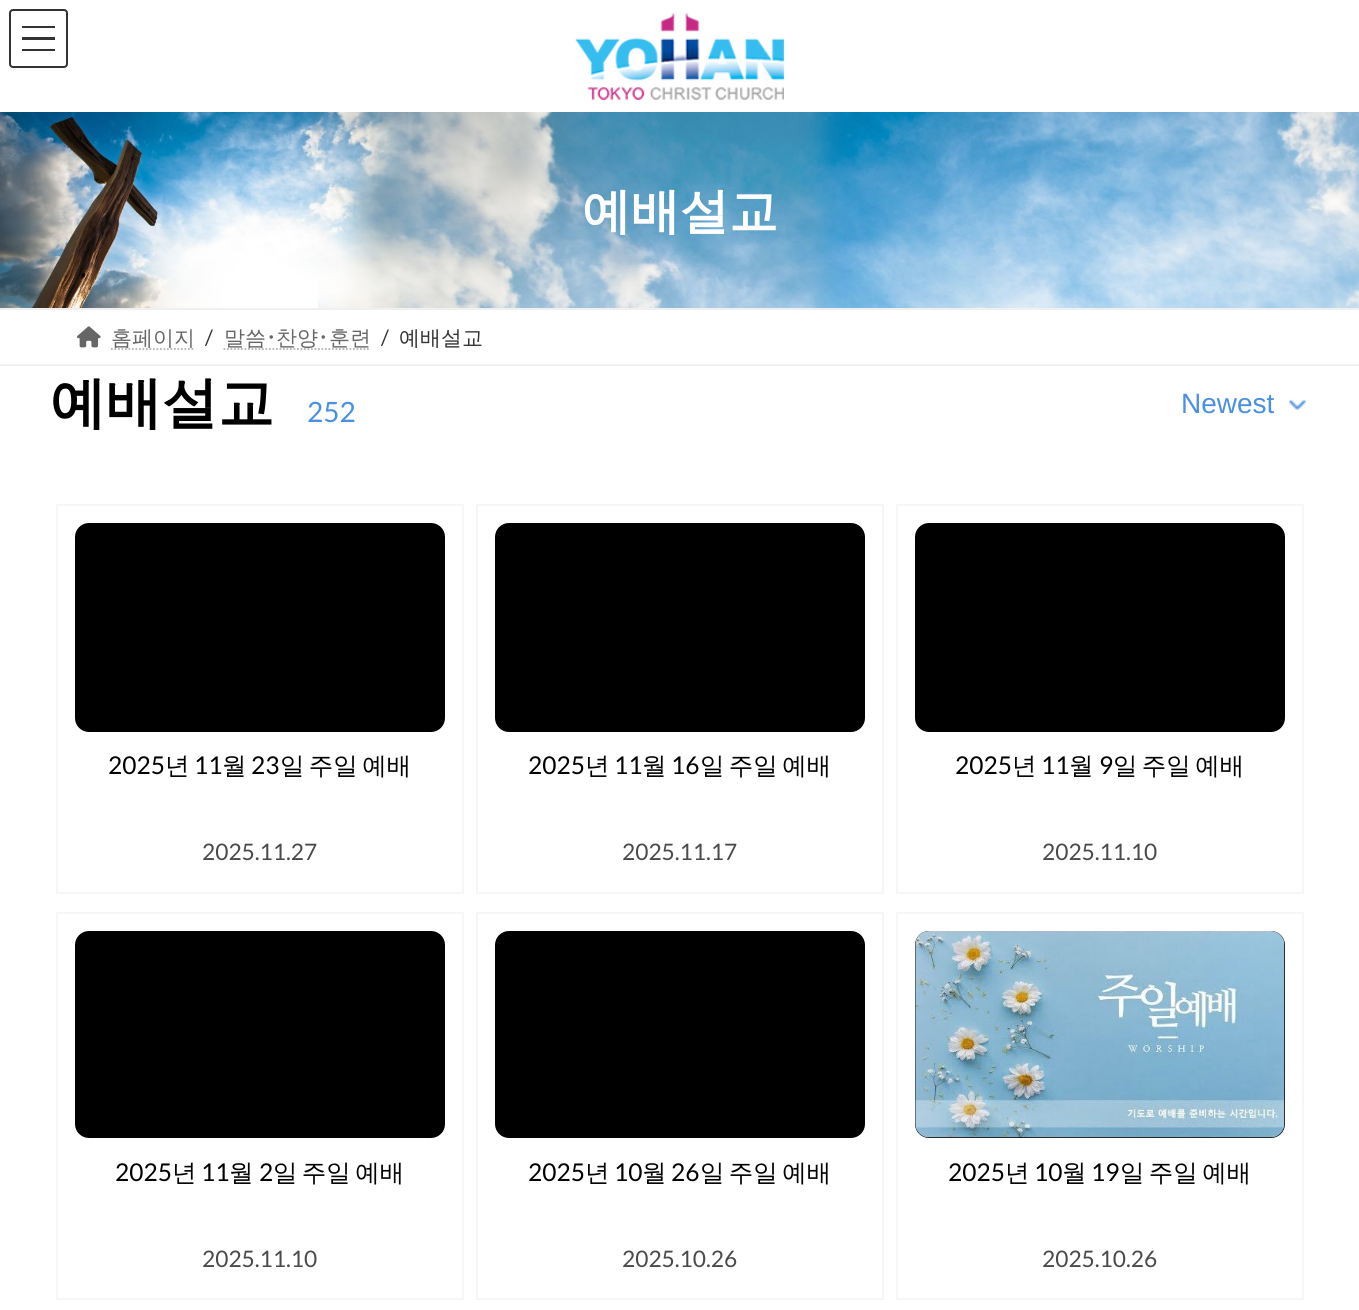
#include <cairo.h>
#include <math.h>
#include <stddef.h>


static void set_color(cairo_t *cr, unsigned color) {
    cairo_set_source_rgb(cr, (color >> 16) / 255.0, (color >> 8 & 255) / 255.0, (color & 255) / 255.0);
}

static void draw_text(cairo_t *cr, double x, double y, const char *s, const char *family, double size, int italic, int bold, unsigned color) {
    cairo_select_font_face(cr, family, italic ? CAIRO_FONT_SLANT_ITALIC : CAIRO_FONT_SLANT_NORMAL,
        bold ? CAIRO_FONT_WEIGHT_BOLD : CAIRO_FONT_WEIGHT_NORMAL);
    cairo_set_font_size(cr, size);
    set_color(cr, color);
    cairo_move_to(cr, x, y);
    cairo_show_text(cr, s);
}

static void draw_spaced(cairo_t *cr, double x, double y, const char *s, double letter, double word) {
    cairo_move_to(cr, x, y);
    while (*s) {
        char ch[5] = {0};
        int n = 0;
        do ch[n++] = *s++; while ((*s & 0xC0) == 0x80);
        cairo_show_text(cr, ch);
        cairo_rel_move_to(cr, letter + word * (*ch == ' '), 0);
    }
}

static void fill_rect(cairo_t *cr, double x, double y, double w, double h, unsigned color) {
    set_color(cr, color);
    cairo_rectangle(cr, x, y, w, h);
    cairo_fill(cr);
}

static void rounded_rect(cairo_t *cr, double x, double y, double w, double h, double r) {
    cairo_new_sub_path(cr);
    cairo_arc(cr, x + w - r, y + h - r, r, 0, M_PI / 2);
    cairo_arc(cr, x + r, y + h - r, r, M_PI / 2, M_PI);
    cairo_arc(cr, x + r, y + r, r, M_PI, 1.5 * M_PI);
    cairo_arc(cr, x + w - r, y + r, r, 1.5 * M_PI, 2 * M_PI);
    cairo_close_path(cr);
}

static void draw_image(cairo_t *cr, const char *path, double x, double y, double w, double h) {
    cairo_surface_t *image = cairo_image_surface_create_from_png(path);
    cairo_save(cr);
    cairo_set_source_surface(cr, image, x, y);
    cairo_rectangle(cr, x, y, w, h);
    cairo_fill(cr);
    cairo_restore(cr);
    cairo_surface_destroy(image);
}

int main(void) {
    cairo_surface_t *surface = cairo_image_surface_create(CAIRO_FORMAT_RGB24, 1359, 1310);
    cairo_t *cr = cairo_create(surface);
    cairo_font_options_t *options = cairo_font_options_create();
    cairo_font_options_set_hint_metrics(options, CAIRO_HINT_METRICS_OFF);
    cairo_font_options_set_hint_style(options, CAIRO_HINT_STYLE_NONE);
    cairo_set_font_options(cr, options);
    cairo_set_miter_limit(cr, 4);
    set_color(cr, 0xFFFFFF);
    cairo_paint(cr);
    fill_rect(cr, 22, 26, 33, 2, 0x333333);
    fill_rect(cr, 22, 37, 33, 3, 0x333333);
    fill_rect(cr, 22, 49, 33, 2, 0x333333);
    rounded_rect(cr, 10, 10, 57, 57, 3);
    cairo_stroke(cr);
    draw_image(cr, "assets/img1.png", 575, 13, 209, 87);
    draw_image(cr, "assets/img2.png", 0, 112, 1359, 196);
    draw_text(cr, 582, 228, "예배설교", "WenQuanYi Zen Hei", 49, 0, 1, 0xFFFFFF);
    fill_rect(cr, 0, 308, 1359, 2, 0xF0F0F0);
    fill_rect(cr, 0, 364, 1359, 2, 0xF0F0F0);
    draw_image(cr, "assets/img3.png", 77, 326, 24, 22);
    cairo_new_path(cr);
    cairo_move_to(cr, 111, 349);
    cairo_line_to(cr, 195, 349);
    set_color(cr, 0xB3B3B3);
    cairo_set_line_width(cr, 1.8);
    cairo_set_dash(cr, (double[]){1.75, 1.75}, 2, 0);
    cairo_stroke(cr);
    draw_text(cr, 111, 345, "홈페이지", "WenQuanYi Zen Hei Medium", 21, 0, 0, 0x666666);
    draw_text(cr, 205, 345, "/", "Lato", 21, 0, 0, 0x333333);
    cairo_new_path(cr);
    cairo_move_to(cr, 223.5, 349);
    cairo_line_to(cr, 370.5, 349);
    set_color(cr, 0xB3B3B3);
    cairo_stroke(cr);
    draw_text(cr, 224, 345, "말씀", "WenQuanYi Zen Hei Medium", 21, 0, 0, 0x666666);
    draw_text(cr, 266, 345, "･", "Noto Sans JP", 21, 0, 0, 0x666666);
    draw_text(cr, 276, 345, "찬양", "WenQuanYi Zen Hei Medium", 21, 0, 0, 0x666666);
    draw_text(cr, 318, 345, "･", "Noto Sans JP", 21, 0, 0, 0x666666);
    draw_text(cr, 329, 345, "훈련", "WenQuanYi Zen Hei Medium", 21, 0, 0, 0x666666);
    draw_text(cr, 381, 345, "/", "Lato", 21, 0, 0, 0x333333);
    draw_text(cr, 399, 345, "예배설교", "WenQuanYi Zen Hei Medium", 21, 0, 0, 0x333333);
    draw_text(cr, 50, 422, "예배설교", "WenQuanYi Zen Hei", 56, 0, 1, 0x000000);
    draw_text(cr, 307, 422, "252", "Lato", 28, 0, 0, 0x4A90E2);
    draw_text(cr, 1181, 413, "Newest", "Liberation Sans", 28, 0, 0, 0x4A90E2);
    draw_image(cr, "assets/img4.png", 1288, 399, 18, 11);
    cairo_rectangle(cr, 57, 505, 406, 388);
    set_color(cr, 0xF6F6F6);
    cairo_set_line_width(cr, 2);
    cairo_set_dash(cr, NULL, 0, 0);
    cairo_stroke(cr);
    set_color(cr, 0x000000);
    rounded_rect(cr, 75, 523, 370, 209, 14);
    cairo_fill(cr);
    draw_text(cr, 108, 774, "2025", "Lato", 24.5, 0, 0, 0x000000);
    draw_text(cr, 165, 774, "년", "WenQuanYi Zen Hei Medium", 24.5, 0, 0, 0x000000);
    draw_text(cr, 194, 774, "11", "Lato", 24.5, 0, 0, 0x000000);
    draw_text(cr, 222, 774, "월", "WenQuanYi Zen Hei Medium", 24.5, 0, 0, 0x000000);
    draw_text(cr, 251, 774, "23", "Lato", 24.5, 0, 0, 0x000000);
    cairo_select_font_face(cr, "WenQuanYi Zen Hei Medium", CAIRO_FONT_SLANT_NORMAL, CAIRO_FONT_WEIGHT_NORMAL);
    draw_spaced(cr, 280, 774, "일 주일 예배", 0, -3);
    draw_text(cr, 202, 860, "2025.11.27", "Lato", 22.75, 0, 0, 0x4A4A4A);
    cairo_rectangle(cr, 477, 505, 406, 388);
    set_color(cr, 0xF6F6F6);
    cairo_stroke(cr);
    set_color(cr, 0x000000);
    rounded_rect(cr, 495, 523, 370, 209, 14);
    cairo_fill(cr);
    draw_text(cr, 528, 774, "2025", "Lato", 24.5, 0, 0, 0x000000);
    draw_text(cr, 585, 774, "년", "WenQuanYi Zen Hei Medium", 24.5, 0, 0, 0x000000);
    draw_text(cr, 614, 774, "11", "Lato", 24.5, 0, 0, 0x000000);
    draw_text(cr, 642, 774, "월", "WenQuanYi Zen Hei Medium", 24.5, 0, 0, 0x000000);
    draw_text(cr, 671, 774, "16", "Lato", 24.5, 0, 0, 0x000000);
    cairo_select_font_face(cr, "WenQuanYi Zen Hei Medium", CAIRO_FONT_SLANT_NORMAL, CAIRO_FONT_WEIGHT_NORMAL);
    draw_spaced(cr, 700, 774, "일 주일 예배", 0, -3);
    draw_text(cr, 622, 860, "2025.11.17", "Lato", 22.75, 0, 0, 0x4A4A4A);
    cairo_rectangle(cr, 897, 505, 406, 388);
    set_color(cr, 0xF6F6F6);
    cairo_stroke(cr);
    set_color(cr, 0x000000);
    rounded_rect(cr, 915, 523, 370, 209, 14);
    cairo_fill(cr);
    draw_text(cr, 955, 774, "2025", "Lato", 24.5, 0, 0, 0x000000);
    draw_text(cr, 1012, 774, "년", "WenQuanYi Zen Hei Medium", 24.5, 0, 0, 0x000000);
    draw_text(cr, 1041, 774, "11", "Lato", 24.5, 0, 0, 0x000000);
    draw_text(cr, 1069, 774, "월", "WenQuanYi Zen Hei Medium", 24.5, 0, 0, 0x000000);
    draw_text(cr, 1099, 774, "9", "Lato", 24.5, 0, 0, 0x000000);
    cairo_select_font_face(cr, "WenQuanYi Zen Hei Medium", CAIRO_FONT_SLANT_NORMAL, CAIRO_FONT_WEIGHT_NORMAL);
    draw_spaced(cr, 1113, 774, "일 주일 예배", 0, -3);
    draw_text(cr, 1042, 860, "2025.11.10", "Lato", 22.75, 0, 0, 0x4A4A4A);
    cairo_rectangle(cr, 57, 913, 406, 386);
    set_color(cr, 0xF6F6F6);
    cairo_stroke(cr);
    set_color(cr, 0x000000);
    rounded_rect(cr, 75, 931, 370, 207, 14);
    cairo_fill(cr);
    draw_text(cr, 115, 1181, "2025", "Lato", 24.5, 0, 0, 0x000000);
    draw_text(cr, 172, 1181, "년", "WenQuanYi Zen Hei Medium", 24.5, 0, 0, 0x000000);
    draw_text(cr, 201, 1181, "11", "Lato", 24.5, 0, 0, 0x000000);
    draw_text(cr, 229, 1181, "월", "WenQuanYi Zen Hei Medium", 24.5, 0, 0, 0x000000);
    draw_text(cr, 259, 1181, "2", "Lato", 24.5, 0, 0, 0x000000);
    cairo_select_font_face(cr, "WenQuanYi Zen Hei Medium", CAIRO_FONT_SLANT_NORMAL, CAIRO_FONT_WEIGHT_NORMAL);
    draw_spaced(cr, 273, 1181, "일 주일 예배", 0, -3);
    draw_text(cr, 202, 1267, "2025.11.10", "Lato", 22.75, 0, 0, 0x4A4A4A);
    cairo_rectangle(cr, 477, 913, 406, 386);
    set_color(cr, 0xF6F6F6);
    cairo_stroke(cr);
    set_color(cr, 0x000000);
    rounded_rect(cr, 495, 931, 370, 207, 14);
    cairo_fill(cr);
    draw_text(cr, 528, 1181, "2025", "Lato", 24.5, 0, 0, 0x000000);
    draw_text(cr, 585, 1181, "년", "WenQuanYi Zen Hei Medium", 24.5, 0, 0, 0x000000);
    draw_text(cr, 614, 1181, "10", "Lato", 24.5, 0, 0, 0x000000);
    draw_text(cr, 642, 1181, "월", "WenQuanYi Zen Hei Medium", 24.5, 0, 0, 0x000000);
    draw_text(cr, 671, 1181, "26", "Lato", 24.5, 0, 0, 0x000000);
    cairo_select_font_face(cr, "WenQuanYi Zen Hei Medium", CAIRO_FONT_SLANT_NORMAL, CAIRO_FONT_WEIGHT_NORMAL);
    draw_spaced(cr, 700, 1181, "일 주일 예배", 0, -3);
    draw_text(cr, 622, 1267, "2025.10.26", "Lato", 22.75, 0, 0, 0x4A4A4A);
    cairo_rectangle(cr, 897, 913, 406, 386);
    set_color(cr, 0xF6F6F6);
    cairo_stroke(cr);
    set_color(cr, 0x000000);
    rounded_rect(cr, 915, 931, 370, 207, 14);
    cairo_fill(cr);
    draw_image(cr, "assets/img5.png", 915, 931, 370, 207);
    draw_text(cr, 948, 1181, "2025", "Lato", 24.5, 0, 0, 0x000000);
    draw_text(cr, 1005, 1181, "년", "WenQuanYi Zen Hei Medium", 24.5, 0, 0, 0x000000);
    draw_text(cr, 1034, 1181, "10", "Lato", 24.5, 0, 0, 0x000000);
    draw_text(cr, 1062, 1181, "월", "WenQuanYi Zen Hei Medium", 24.5, 0, 0, 0x000000);
    draw_text(cr, 1091, 1181, "19", "Lato", 24.5, 0, 0, 0x000000);
    cairo_select_font_face(cr, "WenQuanYi Zen Hei Medium", CAIRO_FONT_SLANT_NORMAL, CAIRO_FONT_WEIGHT_NORMAL);
    draw_spaced(cr, 1120, 1181, "일 주일 예배", 0, -3);
    draw_text(cr, 1042, 1267, "2025.10.26", "Lato", 22.75, 0, 0, 0x4A4A4A);
    cairo_surface_write_to_png(surface, "output.png");
    cairo_font_options_destroy(options);
    cairo_destroy(cr);
    cairo_surface_destroy(surface);
    return 0;
}
